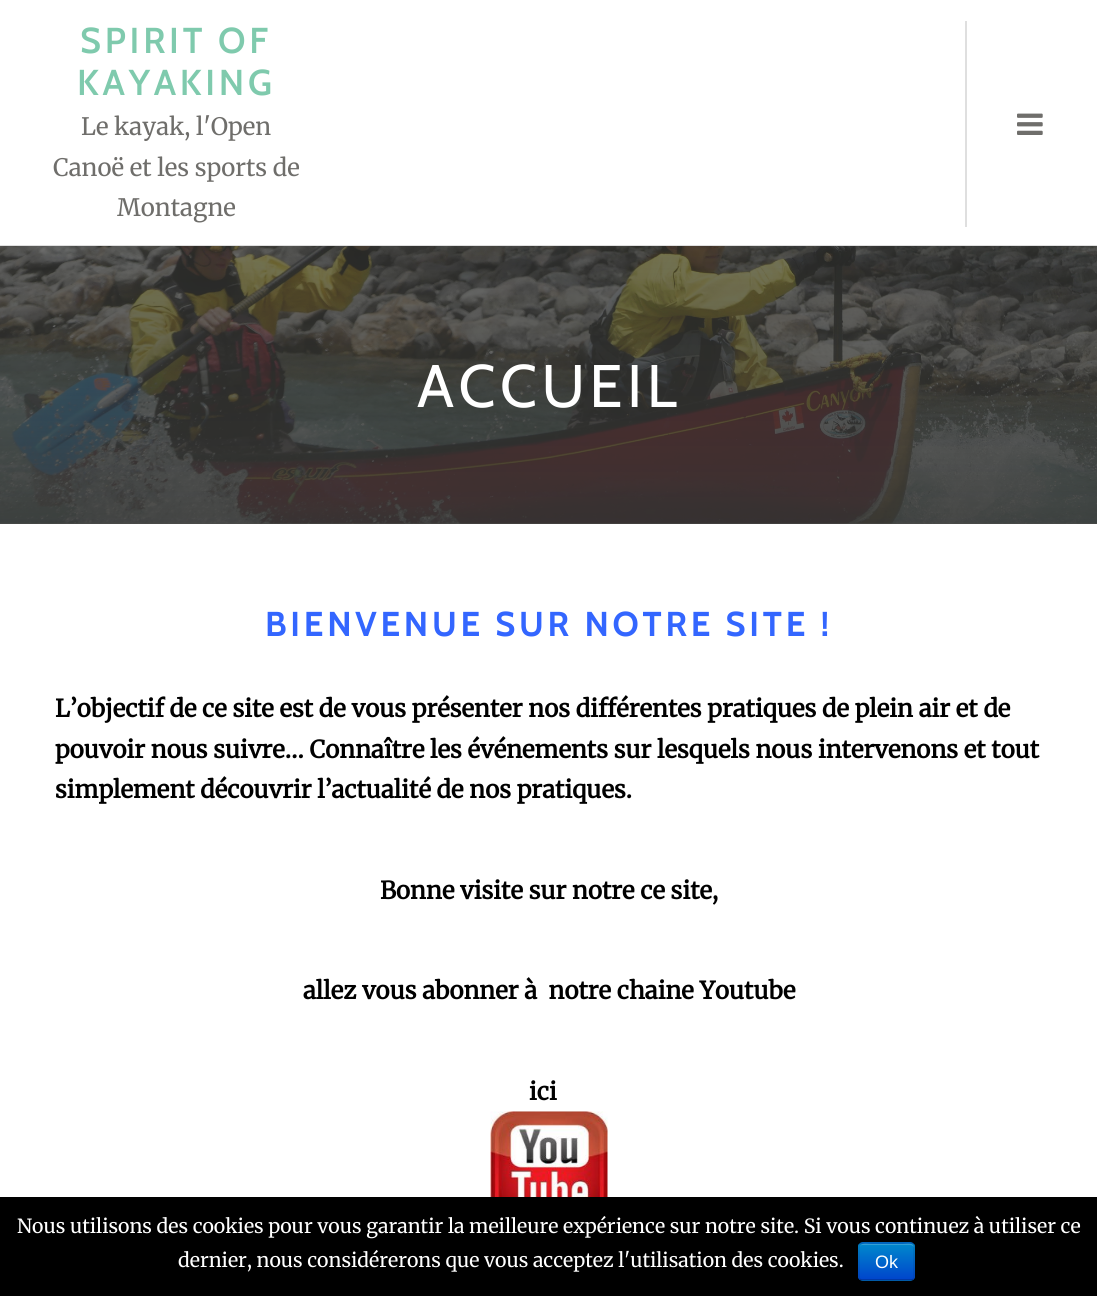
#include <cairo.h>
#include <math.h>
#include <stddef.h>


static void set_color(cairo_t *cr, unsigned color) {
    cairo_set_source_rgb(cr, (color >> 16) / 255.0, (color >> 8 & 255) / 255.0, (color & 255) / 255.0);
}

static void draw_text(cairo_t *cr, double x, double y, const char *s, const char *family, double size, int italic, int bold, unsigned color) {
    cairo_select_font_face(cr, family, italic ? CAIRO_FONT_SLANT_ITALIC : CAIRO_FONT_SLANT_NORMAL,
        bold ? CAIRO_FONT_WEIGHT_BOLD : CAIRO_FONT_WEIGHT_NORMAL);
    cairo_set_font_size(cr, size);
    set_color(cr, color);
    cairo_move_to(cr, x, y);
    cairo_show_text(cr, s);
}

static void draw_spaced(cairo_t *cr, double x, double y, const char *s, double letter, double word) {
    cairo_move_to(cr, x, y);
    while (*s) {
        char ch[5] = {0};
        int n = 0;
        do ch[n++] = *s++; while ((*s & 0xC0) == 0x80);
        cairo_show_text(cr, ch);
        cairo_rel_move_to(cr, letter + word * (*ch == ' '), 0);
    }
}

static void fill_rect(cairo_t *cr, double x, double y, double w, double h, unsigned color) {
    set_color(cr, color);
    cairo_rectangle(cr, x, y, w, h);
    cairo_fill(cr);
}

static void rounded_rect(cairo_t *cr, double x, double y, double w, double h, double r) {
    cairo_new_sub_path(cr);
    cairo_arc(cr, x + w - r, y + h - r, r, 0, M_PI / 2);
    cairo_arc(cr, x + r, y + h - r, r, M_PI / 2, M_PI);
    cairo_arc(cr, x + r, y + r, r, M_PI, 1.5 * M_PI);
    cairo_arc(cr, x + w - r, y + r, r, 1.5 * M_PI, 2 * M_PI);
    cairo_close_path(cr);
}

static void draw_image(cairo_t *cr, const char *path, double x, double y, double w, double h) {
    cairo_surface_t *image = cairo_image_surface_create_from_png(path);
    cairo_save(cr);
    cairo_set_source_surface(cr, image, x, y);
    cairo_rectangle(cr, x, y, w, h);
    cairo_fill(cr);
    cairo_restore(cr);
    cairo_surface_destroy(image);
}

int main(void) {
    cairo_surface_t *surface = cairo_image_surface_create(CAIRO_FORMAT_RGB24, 1097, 1296);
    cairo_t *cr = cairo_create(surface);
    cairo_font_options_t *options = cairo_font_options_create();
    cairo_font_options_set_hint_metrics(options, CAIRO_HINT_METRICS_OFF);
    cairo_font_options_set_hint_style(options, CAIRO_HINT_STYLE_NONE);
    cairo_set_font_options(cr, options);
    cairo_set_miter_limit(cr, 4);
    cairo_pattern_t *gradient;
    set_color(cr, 0xFFFFFF);
    cairo_paint(cr);
    fill_rect(cr, 0, 245, 1097, 1, 0xDFDFDF);
    cairo_select_font_face(cr, "Cabin SemiBold", CAIRO_FONT_SLANT_NORMAL, CAIRO_FONT_WEIGHT_NORMAL);
    cairo_set_font_size(cr, 36);
    set_color(cr, 0x7FCAAD);
    draw_spaced(cr, 80, 53, "SPIRIT OF", 3.75, 0);
    draw_spaced(cr, 77, 95, "KAYAKING", 3.75, 0);
    draw_text(cr, 81, 135, "Le kayak, l'Open", "Merriweather Light", 24, 0, 0, 0x6F6E6B);
    draw_text(cr, 53, 176, "Canoë et les sports de", "Merriweather Light", 24, 0, 0, 0x6F6E6B);
    draw_text(cr, 117, 216, "Montagne", "Merriweather Light", 24, 0, 0, 0x6F6E6B);
    fill_rect(cr, 965, 21, 2, 206, 0xDFDFDF);
    draw_image(cr, "assets/img1.png", 1017, 113, 26, 22);
    draw_image(cr, "assets/img2.png", 0, 246, 1097, 278);
    gradient = cairo_pattern_create_linear(549, 246, 549, 524);
    cairo_pattern_add_color_stop_rgba(gradient, 0, 0.216, 0.216, 0.208, 0.7);
    cairo_pattern_add_color_stop_rgba(gradient, 1, 0.216, 0.216, 0.208, 0.9);
    cairo_set_source(cr, gradient);
    cairo_pattern_destroy(gradient);
    cairo_rectangle(cr, 0, 246, 1097, 278);
    cairo_fill(cr);
    cairo_select_font_face(cr, "Cabin", CAIRO_FONT_SLANT_NORMAL, CAIRO_FONT_WEIGHT_NORMAL);
    cairo_set_font_size(cr, 60);
    set_color(cr, 0xFFFFFF);
    draw_spaced(cr, 417, 407, "ACCUEIL", 4.5, 0);
    cairo_select_font_face(cr, "Cabin", CAIRO_FONT_SLANT_NORMAL, CAIRO_FONT_WEIGHT_BOLD);
    cairo_set_font_size(cr, 34.5);
    set_color(cr, 0x3366FF);
    draw_spaced(cr, 265, 636, "BIENVENUE SUR NOTRE SITE !", 3.75, 0);
    draw_text(cr, 55, 717, "L’objectif de ce site est de vous présenter nos différentes pratiques de plein air et de", "Merriweather", 24, 0, 1, 0x000000);
    draw_text(cr, 55, 758, "pouvoir nous suivre… Connaître les événements sur lesquels nous intervenons et tout", "Merriweather", 24, 0, 1, 0x000000);
    draw_text(cr, 55, 798, "simplement découvrir l’actualité de nos pratiques.", "Merriweather", 24, 0, 1, 0x000000);
    draw_text(cr, 380, 899, "Bonne visite sur notre ce site,", "Merriweather", 24, 0, 1, 0x000000);
    draw_text(cr, 303, 999, "allez vous abonner à  notre chaine Youtube", "Merriweather", 24, 0, 1, 0x000000);
    draw_text(cr, 529, 1100, "ici", "Merriweather", 24, 0, 1, 0x000000);
    draw_image(cr, "assets/img3.png", 490, 1111, 118, 86);
    fill_rect(cr, 0, 1197, 1097, 99, 0x000000);
    draw_text(cr, 17, 1233, "Nous utilisons des cookies pour vous garantir la meilleure expérience sur notre site. Si vous continuez à utiliser ce", "Merriweather Light", 19.5, 0, 0, 0xFFFFFF);
    draw_text(cr, 178, 1267, "dernier, nous considérerons que vous acceptez l'utilisation des cookies.", "Merriweather Light", 19.5, 0, 0, 0xFFFFFF);
    set_color(cr, 0x006DCC);
    rounded_rect(cr, 858, 1242, 57, 39, 5);
    cairo_fill(cr);
    cairo_save(cr);
    rounded_rect(cr, 858, 1242, 57, 39, 5);
    cairo_clip(cr);
    gradient = cairo_pattern_create_linear(887, 1244, 887, 1280);
    cairo_pattern_add_color_stop_rgba(gradient, 0, 0, 0.533, 0.8, 1);
    cairo_pattern_add_color_stop_rgba(gradient, 1, 0, 0.267, 0.8, 1);
    cairo_set_source(cr, gradient);
    cairo_pattern_destroy(gradient);
    cairo_rectangle(cr, 858, 1244, 57, 36);
    cairo_fill(cr);
    cairo_restore(cr);
    set_color(cr, 0x339FD6);
    cairo_new_path(cr);
    cairo_move_to(cr, 862, 1245);
    cairo_line_to(cr, 910, 1245);
    cairo_curve_to(cr, 912, 1245, 914, 1246, 914, 1248);
    cairo_curve_to(cr, 914, 1242, 907, 1244, 903, 1244);
    cairo_line_to(cr, 871, 1244);
    cairo_curve_to(cr, 867, 1244, 860, 1242, 860, 1248);
    cairo_curve_to(cr, 860, 1246, 861, 1245, 862, 1245);
    cairo_close_path(cr);
    cairo_fill(cr);
    cairo_new_path(cr);
    cairo_move_to(cr, 913, 1279);
    cairo_curve_to(cr, 912.5, 1280, 911.5, 1280, 910.5, 1280);
    cairo_line_to(cr, 862.5, 1280);
    cairo_curve_to(cr, 861.5, 1280, 860.5, 1280, 860, 1279);
    cairo_set_source_rgba(cr, 0, 0, 0, 0.25);
    cairo_set_line_width(cr, 1.5);
    cairo_stroke(cr);
    cairo_new_path(cr);
    cairo_move_to(cr, 860, 1279);
    cairo_curve_to(cr, 859, 1278.5, 859, 1277.5, 859, 1276.5);
    cairo_line_to(cr, 859, 1246.5);
    cairo_curve_to(cr, 859, 1245.5, 859, 1244.5, 860, 1244);
    cairo_curve_to(cr, 860.5, 1243, 861.5, 1243, 862.5, 1243);
    cairo_line_to(cr, 910.5, 1243);
    cairo_curve_to(cr, 911.5, 1243, 912.5, 1243, 913, 1244);
    cairo_curve_to(cr, 914, 1244.5, 914, 1245.5, 914, 1246.5);
    cairo_line_to(cr, 914, 1276.5);
    cairo_curve_to(cr, 914, 1277.5, 914, 1278.5, 913, 1279);
    cairo_set_source_rgba(cr, 0, 0, 0, 0.1);
    cairo_stroke(cr);
    draw_text(cr, 875, 1268, "Ok", "Liberation Sans", 18, 0, 0, 0xFFFFFF);
    cairo_surface_write_to_png(surface, "output.png");
    cairo_font_options_destroy(options);
    cairo_destroy(cr);
    cairo_surface_destroy(surface);
    return 0;
}
